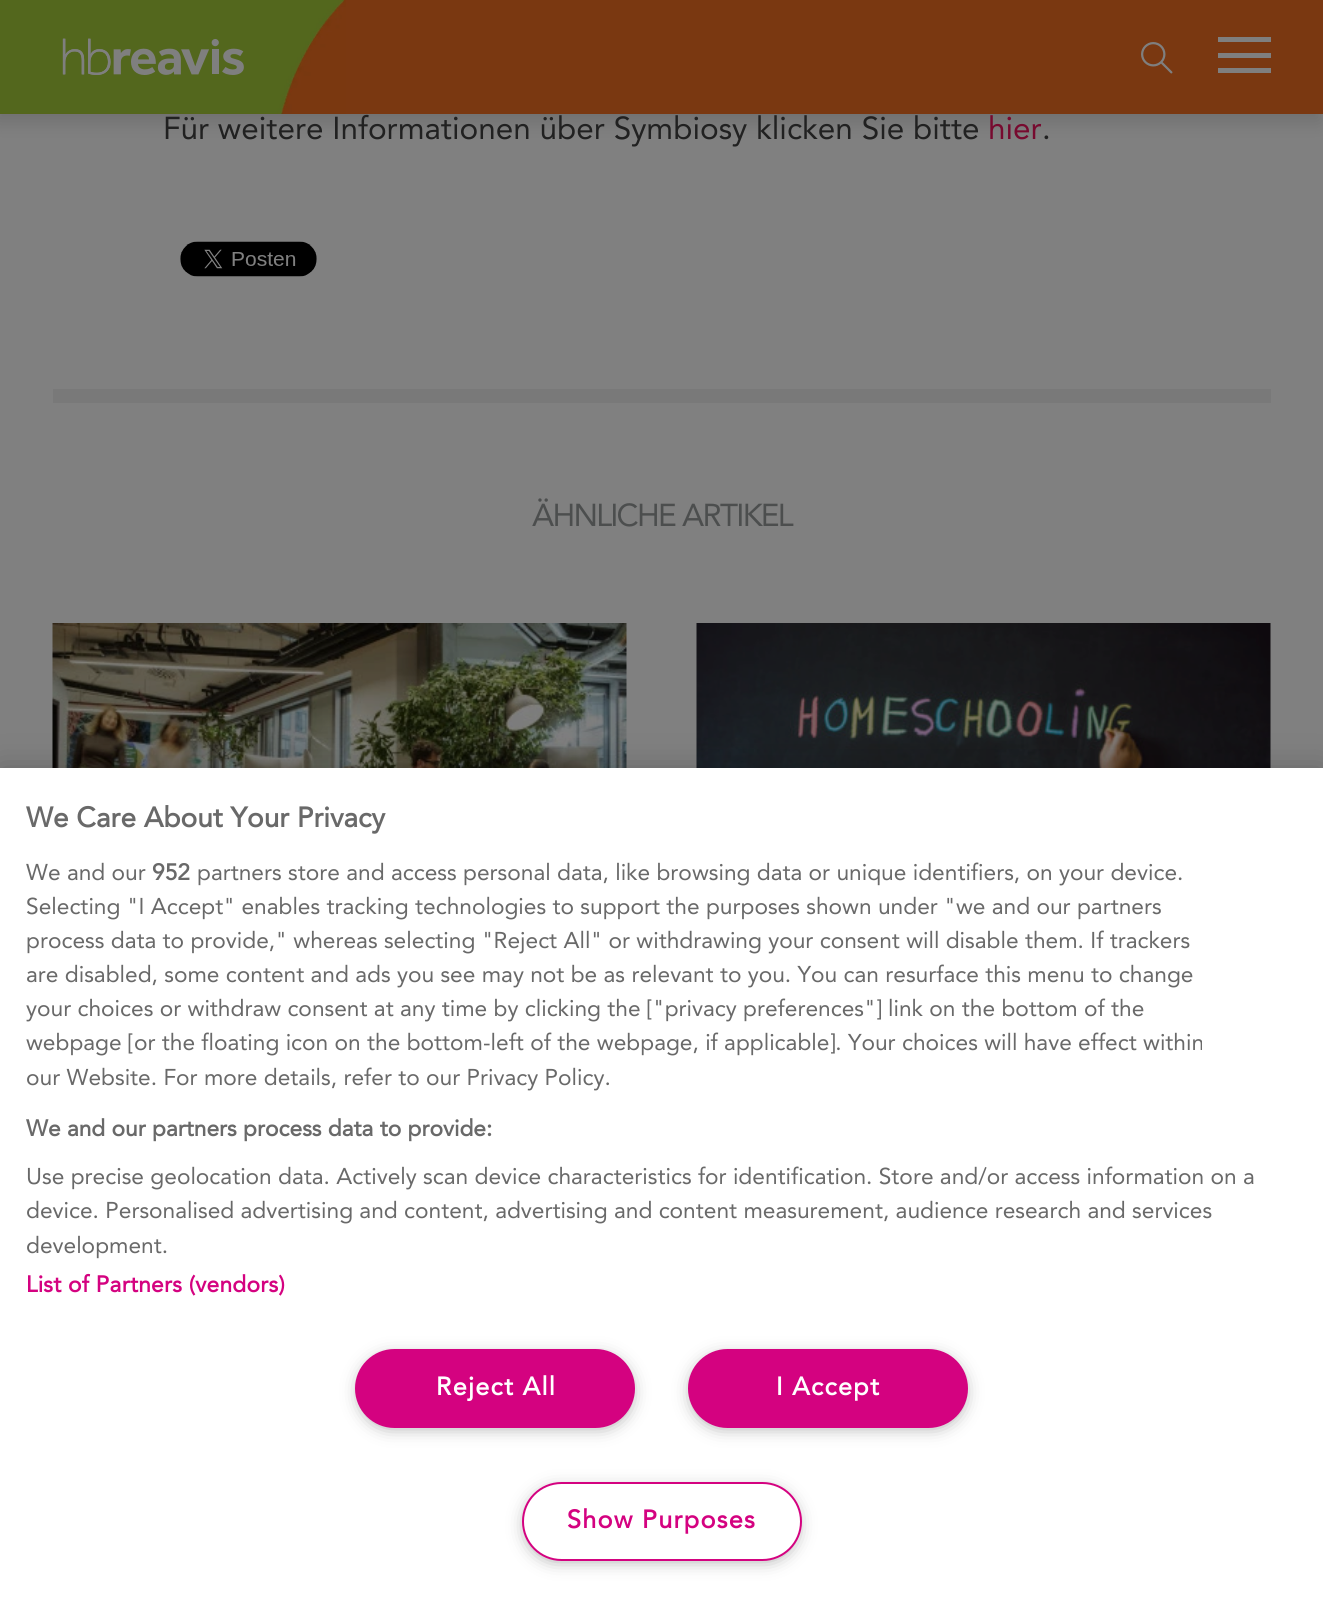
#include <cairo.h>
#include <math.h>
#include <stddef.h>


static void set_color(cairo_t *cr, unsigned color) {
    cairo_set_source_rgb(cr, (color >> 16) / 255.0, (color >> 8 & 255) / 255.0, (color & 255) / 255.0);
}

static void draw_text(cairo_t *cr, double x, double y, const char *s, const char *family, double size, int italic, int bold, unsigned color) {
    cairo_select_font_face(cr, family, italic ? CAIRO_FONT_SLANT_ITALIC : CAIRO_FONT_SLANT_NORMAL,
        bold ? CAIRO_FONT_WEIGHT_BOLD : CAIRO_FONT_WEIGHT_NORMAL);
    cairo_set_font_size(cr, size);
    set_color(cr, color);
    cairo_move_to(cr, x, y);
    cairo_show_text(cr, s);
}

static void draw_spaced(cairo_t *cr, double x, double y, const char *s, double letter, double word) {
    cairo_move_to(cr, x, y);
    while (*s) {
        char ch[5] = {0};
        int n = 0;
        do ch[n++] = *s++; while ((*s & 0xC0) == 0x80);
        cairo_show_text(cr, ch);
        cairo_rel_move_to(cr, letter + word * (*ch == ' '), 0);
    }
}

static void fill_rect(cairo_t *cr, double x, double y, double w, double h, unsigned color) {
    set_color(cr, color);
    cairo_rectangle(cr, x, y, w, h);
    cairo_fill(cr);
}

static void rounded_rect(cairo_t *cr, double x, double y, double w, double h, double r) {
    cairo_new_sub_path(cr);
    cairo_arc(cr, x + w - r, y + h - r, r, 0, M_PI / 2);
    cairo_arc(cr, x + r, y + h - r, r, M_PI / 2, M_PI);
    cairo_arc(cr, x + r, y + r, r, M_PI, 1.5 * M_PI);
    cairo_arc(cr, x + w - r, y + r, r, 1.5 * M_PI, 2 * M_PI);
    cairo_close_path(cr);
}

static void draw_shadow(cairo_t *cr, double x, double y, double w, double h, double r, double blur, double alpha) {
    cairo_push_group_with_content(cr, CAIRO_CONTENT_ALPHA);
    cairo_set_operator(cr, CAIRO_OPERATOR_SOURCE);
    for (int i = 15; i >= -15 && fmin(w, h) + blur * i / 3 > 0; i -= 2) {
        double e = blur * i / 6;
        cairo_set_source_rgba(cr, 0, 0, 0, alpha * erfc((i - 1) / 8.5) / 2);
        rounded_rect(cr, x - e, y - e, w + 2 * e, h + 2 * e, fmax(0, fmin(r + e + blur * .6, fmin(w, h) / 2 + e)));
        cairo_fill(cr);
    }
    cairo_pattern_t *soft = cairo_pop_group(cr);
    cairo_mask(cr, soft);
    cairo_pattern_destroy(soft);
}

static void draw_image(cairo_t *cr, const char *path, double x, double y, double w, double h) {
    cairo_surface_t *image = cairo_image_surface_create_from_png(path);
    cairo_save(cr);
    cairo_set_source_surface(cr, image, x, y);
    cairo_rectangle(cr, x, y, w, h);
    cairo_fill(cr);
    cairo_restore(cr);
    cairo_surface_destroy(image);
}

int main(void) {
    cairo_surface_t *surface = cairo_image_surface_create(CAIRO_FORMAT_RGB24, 1323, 1606);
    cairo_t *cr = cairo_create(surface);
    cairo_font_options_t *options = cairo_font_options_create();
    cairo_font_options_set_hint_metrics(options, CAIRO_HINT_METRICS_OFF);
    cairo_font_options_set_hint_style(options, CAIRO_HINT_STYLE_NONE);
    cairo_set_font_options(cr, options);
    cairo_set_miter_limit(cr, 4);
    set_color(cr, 0x808080);
    cairo_paint(cr);
    set_color(cr, 0x090909);
    draw_shadow(cr, -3, 7, 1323, 114, 0, 9, 0.15);
    fill_rect(cr, 0, 0, 1323, 114, 0x7A3811);
    draw_image(cr, "assets/img1.png", 0, 0, 346, 114);
    draw_image(cr, "assets/img2.png", 62, 38, 182, 37);
    draw_image(cr, "assets/img3.png", 1141, 42, 32, 32);
    fill_rect(cr, 1218, 53, 53, 5, 0x7F7F7F);
    fill_rect(cr, 1218, 37, 53, 5, 0x7F7F7F);
    fill_rect(cr, 1218, 68, 53, 5, 0x7F7F7F);
    draw_text(cr, 163, 139, "Für weitere Informationen über Symbiosy klicken Sie bitte", "Avenir", 31.5, 0, 0, 0x212121);
    draw_text(cr, 988, 139, "hier", "Avenir", 31.5, 0, 0, 0x770A2F);
    draw_text(cr, 1042, 139, ".", "Avenir", 31.5, 0, 0, 0x212121);
    draw_image(cr, "assets/img4.png", 180, 241, 137, 36);
    fill_rect(cr, 53, 389, 1218, 14, 0x797979);
    set_color(cr, 0x4C4E4E);
    draw_spaced(cr, 532, 526, "ÄHNLICHE ARTIKEL", -1.75, 0);
    draw_image(cr, "assets/img5.png", 52, 623, 575, 145);
    draw_image(cr, "assets/img6.png", 696, 623, 575, 145);
    set_color(cr, 0x000000);
    draw_shadow(cr, 0, 768, 1323, 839, 0, 16, 0.2);
    fill_rect(cr, 0, 768, 1323, 838, 0xFFFFFF);
    draw_text(cr, 26, 827, "We Care About Your Privacy", "Avenir", 28, 0, 1, 0x696969);
    draw_text(cr, 26, 880, "We and our", "Avenir", 22.75, 0, 0, 0x696969);
    draw_text(cr, 152, 880, "952", "Avenir", 22.75, 0, 1, 0x696969);
    draw_text(cr, 197, 880, "partners store and access personal data, like browsing data or unique identifiers, on your device.", "Avenir", 22.75, 0, 0, 0x696969);
    draw_text(cr, 26, 914, "Selecting \"I Accept\" enables tracking technologies to support the purposes shown under \"we and our partners", "Avenir", 22.75, 0, 0, 0x696969);
    draw_text(cr, 26, 948, "process data to provide,\" whereas selecting \"Reject All\" or withdrawing your consent will disable them. If trackers", "Avenir", 22.75, 0, 0, 0x696969);
    draw_text(cr, 26, 982, "are disabled, some content and ads you see may not be as relevant to you. You can resurface this menu to change", "Avenir", 22.75, 0, 0, 0x696969);
    draw_text(cr, 26, 1016, "your choices or withdraw consent at any time by clicking the [\"privacy preferences\"] link on the bottom of the", "Avenir", 22.75, 0, 0, 0x696969);
    draw_text(cr, 26, 1050, "webpage [or the floating icon on the bottom-left of the webpage, if applicable]. Your choices will have effect within", "Avenir", 22.75, 0, 0, 0x696969);
    draw_text(cr, 26, 1085, "our Website. For more details, refer to our Privacy Policy.", "Avenir", 22.75, 0, 0, 0x696969);
    draw_text(cr, 26, 1136, "We and our partners process data to provide:", "Avenir", 22.75, 0, 1, 0x696969);
    draw_text(cr, 26, 1184, "Use precise geolocation data. Actively scan device characteristics for identification. Store and/or access information on a", "Avenir", 22.75, 0, 0, 0x696969);
    draw_text(cr, 26, 1218, "device. Personalised advertising and content, advertising and content measurement, audience research and services", "Avenir", 22.75, 0, 0, 0x696969);
    draw_text(cr, 26, 1253, "development.", "Avenir", 22.75, 0, 0, 0x696969);
    cairo_select_font_face(cr, "Avenir", CAIRO_FONT_SLANT_NORMAL, CAIRO_FONT_WEIGHT_BOLD);
    set_color(cr, 0xD40280);
    draw_spaced(cr, 26, 1292, "List of Partners (vendors)", 0.25, 0);
    set_color(cr, 0x999999);
    draw_shadow(cr, 361, 1358, 269, 68, 34, 9, 1);
    set_color(cr, 0xD40280);
    rounded_rect(cr, 356, 1350, 278, 77, 38.5);
    cairo_fill_preserve(cr);
    cairo_stroke(cr);
    cairo_set_font_size(cr, 25.25);
    set_color(cr, 0xFFFFFF);
    draw_spaced(cr, 436, 1395, "Reject All", 1.25, 0);
    set_color(cr, 0x999999);
    draw_shadow(cr, 693, 1358, 270, 68, 34, 9, 1);
    set_color(cr, 0xD40280);
    rounded_rect(cr, 689, 1350, 278, 77, 38.5);
    cairo_fill_preserve(cr);
    cairo_stroke(cr);
    set_color(cr, 0xFFFFFF);
    draw_spaced(cr, 776, 1395, "I Accept", 1.25, 0);
    set_color(cr, 0x999999);
    draw_shadow(cr, 527, 1491, 269, 68, 34, 9, 1);
    set_color(cr, 0xFFFFFF);
    rounded_rect(cr, 523, 1483, 278, 77, 38.5);
    cairo_fill_preserve(cr);
    set_color(cr, 0xD40280);
    cairo_stroke(cr);
    draw_spaced(cr, 567, 1528, "Show Purposes", 1.25, 0);
    cairo_surface_write_to_png(surface, "output.png");
    cairo_font_options_destroy(options);
    cairo_destroy(cr);
    cairo_surface_destroy(surface);
    return 0;
}
